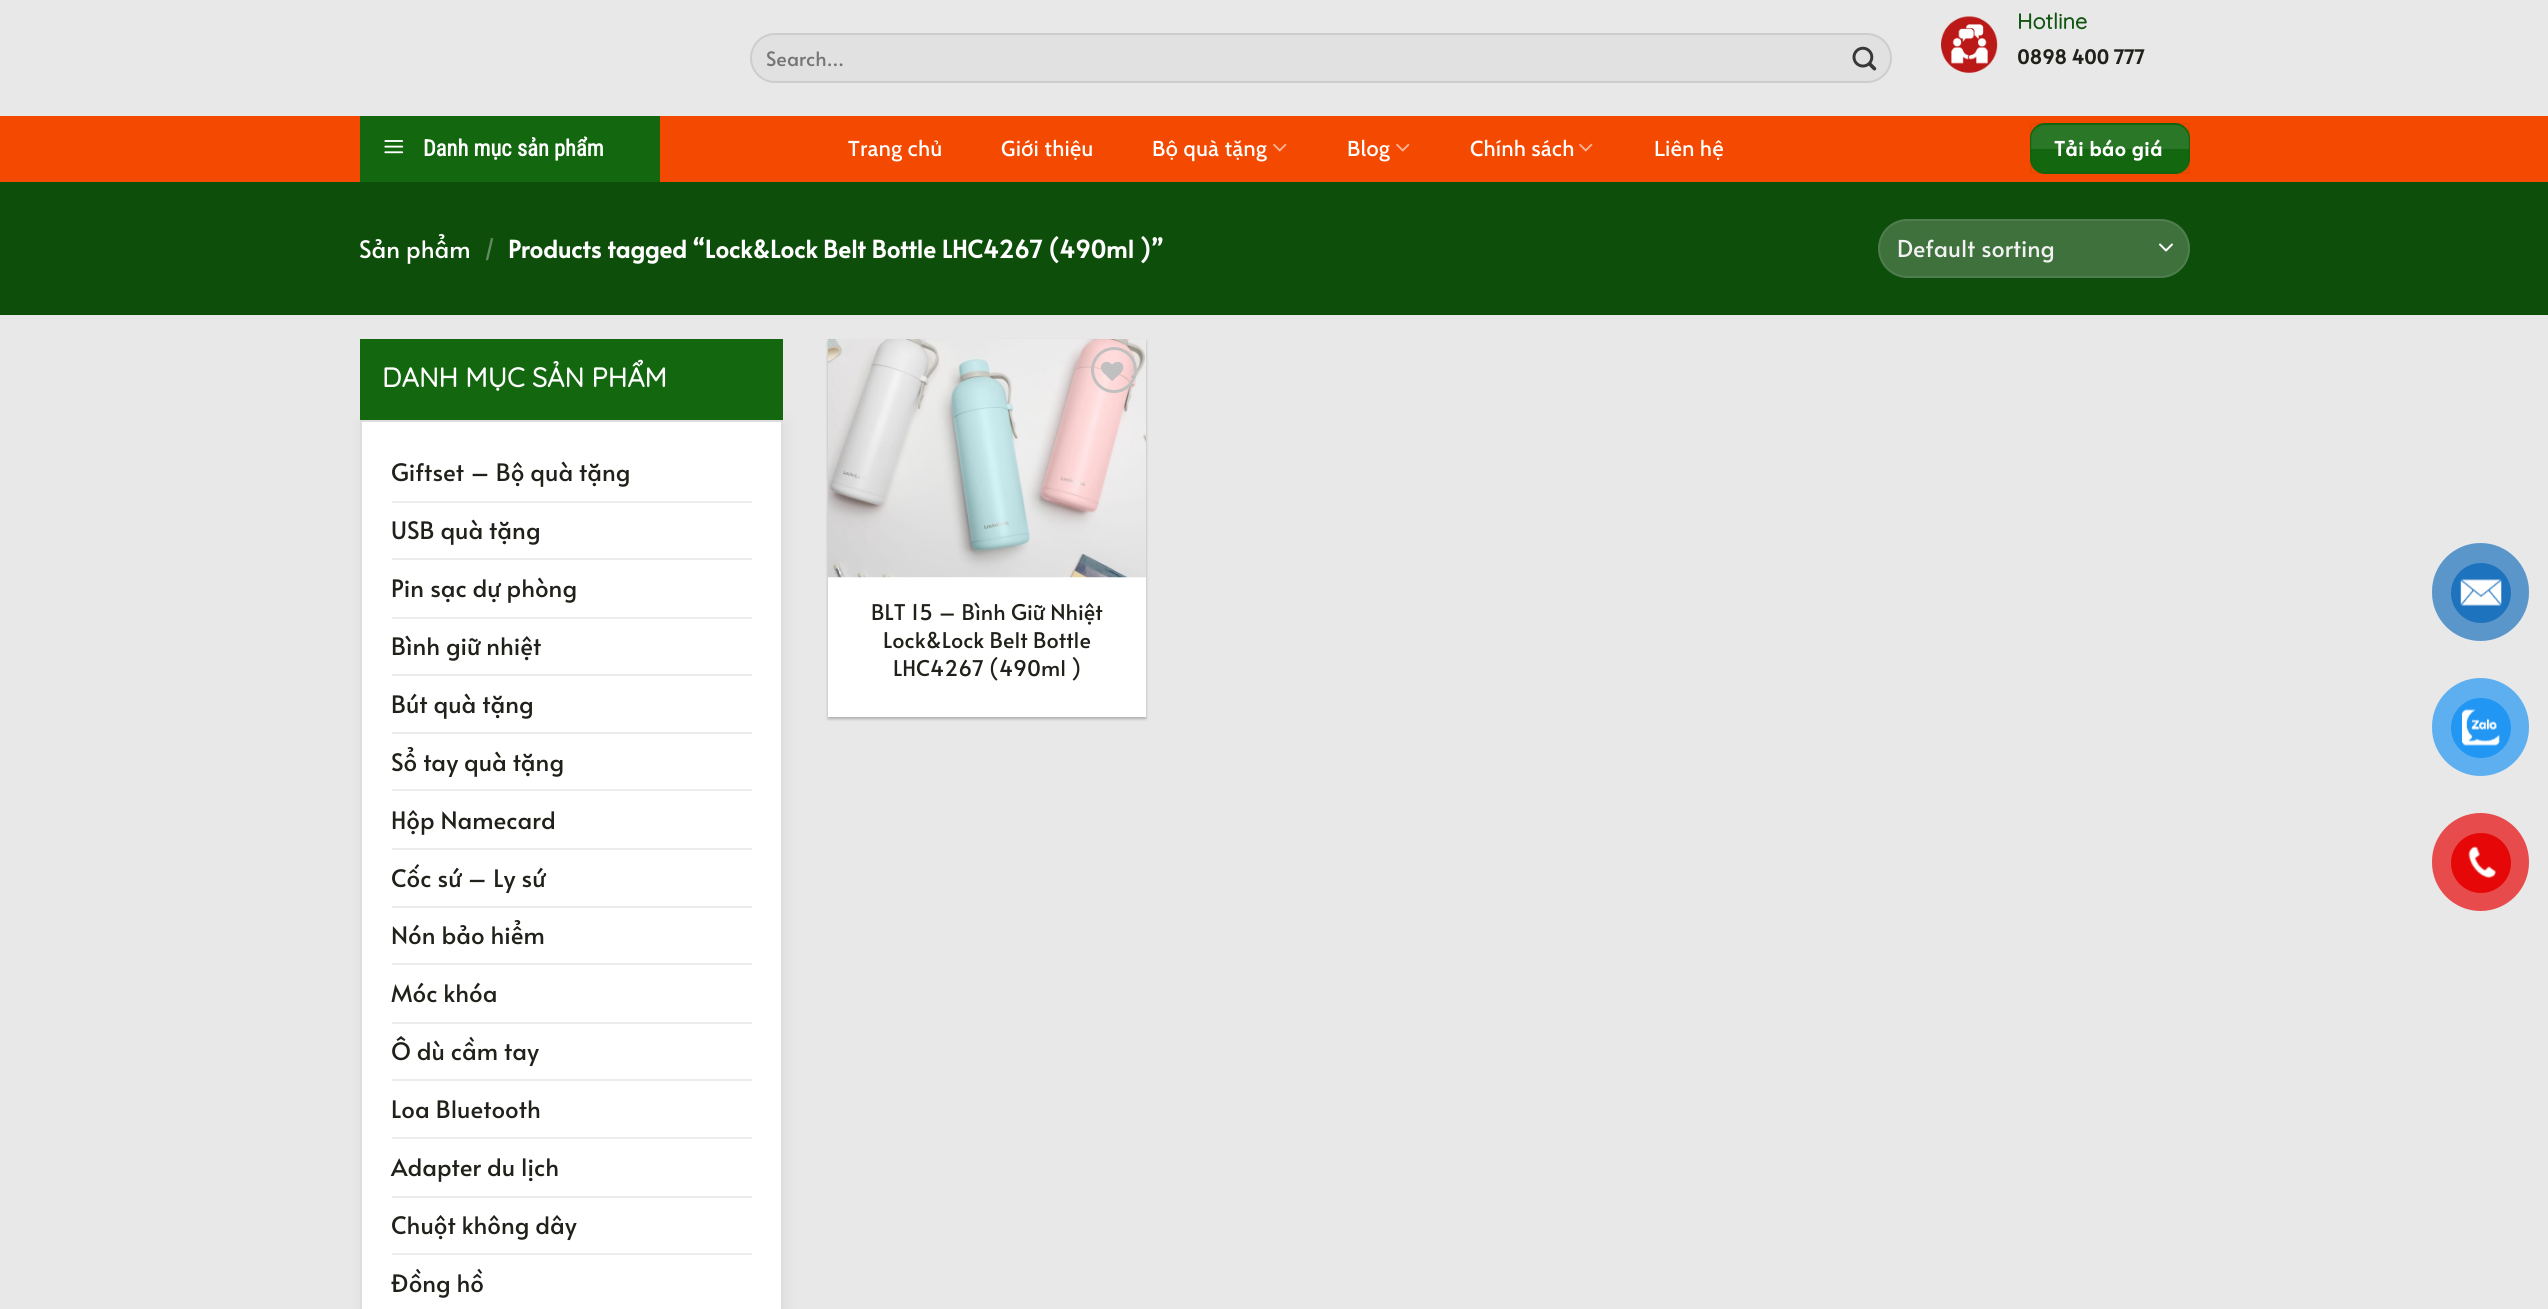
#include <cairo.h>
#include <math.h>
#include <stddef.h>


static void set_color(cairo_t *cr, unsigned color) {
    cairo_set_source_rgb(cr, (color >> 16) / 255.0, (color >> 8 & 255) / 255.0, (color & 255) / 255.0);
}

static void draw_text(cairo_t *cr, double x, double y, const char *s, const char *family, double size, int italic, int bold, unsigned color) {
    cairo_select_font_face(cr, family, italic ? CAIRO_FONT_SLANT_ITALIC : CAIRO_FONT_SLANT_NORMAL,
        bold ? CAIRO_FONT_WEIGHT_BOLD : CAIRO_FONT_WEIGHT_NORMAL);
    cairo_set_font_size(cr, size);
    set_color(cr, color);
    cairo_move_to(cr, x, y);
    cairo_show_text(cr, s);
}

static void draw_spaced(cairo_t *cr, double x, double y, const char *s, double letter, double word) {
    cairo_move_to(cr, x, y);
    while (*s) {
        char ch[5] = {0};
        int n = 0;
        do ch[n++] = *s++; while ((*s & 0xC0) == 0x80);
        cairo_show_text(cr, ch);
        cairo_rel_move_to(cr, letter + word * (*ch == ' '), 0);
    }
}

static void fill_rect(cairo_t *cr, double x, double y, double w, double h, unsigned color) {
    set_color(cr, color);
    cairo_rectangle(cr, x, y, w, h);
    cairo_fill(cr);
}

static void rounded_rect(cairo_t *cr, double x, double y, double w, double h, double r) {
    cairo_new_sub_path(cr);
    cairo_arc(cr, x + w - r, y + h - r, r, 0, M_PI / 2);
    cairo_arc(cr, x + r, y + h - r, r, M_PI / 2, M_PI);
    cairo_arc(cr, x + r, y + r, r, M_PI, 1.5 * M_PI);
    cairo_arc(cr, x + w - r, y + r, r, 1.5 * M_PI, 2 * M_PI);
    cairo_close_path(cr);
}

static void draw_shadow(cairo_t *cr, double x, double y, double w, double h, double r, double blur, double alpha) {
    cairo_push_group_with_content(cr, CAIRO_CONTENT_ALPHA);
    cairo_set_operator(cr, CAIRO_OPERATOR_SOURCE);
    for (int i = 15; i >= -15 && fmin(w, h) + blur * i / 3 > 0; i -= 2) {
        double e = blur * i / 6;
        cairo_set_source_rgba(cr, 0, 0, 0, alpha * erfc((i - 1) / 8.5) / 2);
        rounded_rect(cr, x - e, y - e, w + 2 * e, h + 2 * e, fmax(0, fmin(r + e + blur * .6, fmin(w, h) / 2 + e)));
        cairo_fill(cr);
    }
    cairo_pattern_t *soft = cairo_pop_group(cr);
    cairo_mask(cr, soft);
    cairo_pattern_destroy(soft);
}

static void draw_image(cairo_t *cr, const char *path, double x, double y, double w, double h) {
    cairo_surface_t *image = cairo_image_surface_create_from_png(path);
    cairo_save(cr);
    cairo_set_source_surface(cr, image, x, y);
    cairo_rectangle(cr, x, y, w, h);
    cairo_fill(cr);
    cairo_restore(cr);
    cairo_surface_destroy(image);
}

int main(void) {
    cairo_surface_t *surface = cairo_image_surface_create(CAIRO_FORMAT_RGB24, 2548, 1309);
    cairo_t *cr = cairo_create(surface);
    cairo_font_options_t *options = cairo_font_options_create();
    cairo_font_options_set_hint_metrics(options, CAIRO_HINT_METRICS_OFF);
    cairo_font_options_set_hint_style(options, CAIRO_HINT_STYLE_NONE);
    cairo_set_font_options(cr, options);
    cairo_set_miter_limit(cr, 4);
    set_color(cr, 0xE8E8E8);
    cairo_paint(cr);
    set_color(cr, 0xE1E1E1);
    rounded_rect(cr, 750, 33, 1142, 50, 25);
    cairo_fill(cr);
    rounded_rect(cr, 751, 34, 1140, 48, 24);
    cairo_set_source_rgba(cr, 0, 0, 0, 0.09);
    cairo_stroke(cr);
    draw_text(cr, 766, 66, "Search…", "Alata", 19.75, 0, 0, 0x757575);
    draw_image(cr, "assets/img1.png", 1852, 46, 25, 25);
    draw_image(cr, "assets/img2.png", 1941, 16, 57, 57);
    draw_text(cr, 2017, 29, "Hotline", "Quicksand", 21.6, 0, 1, 0x125510);
    draw_text(cr, 2017, 64, "0898 400 777", "Alata", 19.25, 0, 1, 0x21211B);
    fill_rect(cr, 0, 116, 2548, 66, 0xF44900);
    fill_rect(cr, 360, 116, 300, 66, 0x13680F);
    draw_image(cr, "assets/img3.png", 384, 140, 20, 14);
    draw_text(cr, 423, 156, "Danh mục sản phẩm", "Roboto Condensed", 22.5, 0, 1, 0xFFFFFF);
    cairo_select_font_face(cr, "Cabin Medium", CAIRO_FONT_SLANT_NORMAL, CAIRO_FONT_WEIGHT_NORMAL);
    cairo_set_font_size(cr, 21.6);
    draw_spaced(cr, 848, 156, "Trang chủ", 0.5, 0);
    draw_spaced(cr, 1001, 156, "Giới thiệu", 0.5, 0);
    draw_spaced(cr, 1152, 156, "Bộ quà tặng", 0.5, 0);
    draw_image(cr, "assets/img4.png", 1273, 143, 14, 9);
    draw_spaced(cr, 1347, 156, "Blog", 0.5, 0);
    draw_image(cr, "assets/img4.png", 1396, 143, 14, 9);
    draw_spaced(cr, 1470, 156, "Chính sách", 0.5, 0);
    draw_image(cr, "assets/img4.png", 1579, 143, 14, 9);
    draw_spaced(cr, 1654, 156, "Liên hệ", 0.5, 0);
    set_color(cr, 0x13680F);
    rounded_rect(cr, 2030, 123, 160, 51, 15);
    cairo_fill(cr);
    cairo_rectangle(cr, 2031, 124, 158, 49);
    cairo_set_source_rgba(cr, 0, 0, 0, 0.05);
    cairo_stroke(cr);
    cairo_set_source_rgba(cr, 1, 1, 1, 0.1);
    cairo_new_path(cr);
    cairo_move_to(cr, 2045, 125);
    cairo_line_to(cr, 2175, 125);
    cairo_curve_to(cr, 2182.5, 125, 2189, 131.5, 2189, 139);
    cairo_line_to(cr, 2189, 149);
    cairo_line_to(cr, 2031, 149);
    cairo_line_to(cr, 2031, 139);
    cairo_curve_to(cr, 2031, 131.5, 2037.5, 125, 2045, 125);
    cairo_close_path(cr);
    cairo_fill(cr);
    cairo_select_font_face(cr, "Alata", CAIRO_FONT_SLANT_NORMAL, CAIRO_FONT_WEIGHT_BOLD);
    cairo_set_font_size(cr, 19.75);
    set_color(cr, 0xFFFFFF);
    draw_spaced(cr, 2054, 156, "Tải báo giá", 0.5, 0);
    fill_rect(cr, 0, 182, 2548, 133, 0x0E4E0B);
    draw_text(cr, 359, 258, "Sản phẩm", "Alata", 24, 0, 0, 0xFFFFFF);
    draw_text(cr, 484, 258, "/", "Alata", 24, 0, 0, 0x628C60);
    draw_text(cr, 508, 258, "Products tagged “Lock&Lock Belt Bottle LHC4267 (490ml )”", "Alata", 24, 0, 1, 0xFFFFFF);
    set_color(cr, 0x3E713C);
    rounded_rect(cr, 1878, 219, 312, 59, 29.5);
    cairo_fill(cr);
    cairo_new_path(cr);
    cairo_move_to(cr, 2160, 244.5);
    cairo_line_to(cr, 2166, 250.5);
    cairo_line_to(cr, 2172, 244.5);
    set_color(cr, 0xFFFFFF);
    cairo_set_line_cap(cr, CAIRO_LINE_CAP_ROUND);
    cairo_set_line_join(cr, CAIRO_LINE_JOIN_ROUND);
    cairo_stroke(cr);
    rounded_rect(cr, 1879, 220, 310, 57, 28.5);
    cairo_set_source_rgba(cr, 1, 1, 1, 0.09);
    cairo_set_line_cap(cr, CAIRO_LINE_CAP_BUTT);
    cairo_set_line_join(cr, CAIRO_LINE_JOIN_MITER);
    cairo_stroke(cr);
    draw_text(cr, 1897, 257, "Default sorting", "Alata", 23.25, 0, 0, 0xF1F1F1);
    set_color(cr, 0x000000);
    draw_shadow(cr, 363, 423, 423, 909, 0, 7.5, 0.05);
    fill_rect(cr, 360, 339, 423, 81, 0x13680F);
    draw_text(cr, 382, 387, "DANH MỤC SẢN PHẨM", "Quicksand", 27, 0, 1, 0xFFFFFF);
    cairo_rectangle(cr, 361, 421, 421, 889);
    cairo_fill_preserve(cr);
    set_color(cr, 0xDDDDDD);
    cairo_stroke(cr);
    draw_text(cr, 391, 481, "Giftset – Bộ quà tặng", "Alata", 24, 0, 0, 0x21211B);
    fill_rect(cr, 392, 501, 360, 2, 0xECECEC);
    draw_text(cr, 391, 539, "USB quà tặng", "Alata", 24, 0, 0, 0x21211B);
    fill_rect(cr, 392, 558, 360, 2, 0xECECEC);
    draw_text(cr, 391, 597, "Pin sạc dự phòng", "Alata", 24, 0, 0, 0x21211B);
    fill_rect(cr, 392, 617, 360, 2, 0xECECEC);
    draw_text(cr, 391, 655, "Bình giữ nhiệt", "Alata", 24, 0, 0, 0x21211B);
    fill_rect(cr, 392, 674, 360, 2, 0xECECEC);
    draw_text(cr, 391, 713, "Bút quà tặng", "Alata", 24, 0, 0, 0x21211B);
    fill_rect(cr, 392, 732, 360, 2, 0xECECEC);
    draw_text(cr, 391, 771, "Sổ tay quà tặng", "Alata", 24, 0, 0, 0x21211B);
    fill_rect(cr, 392, 789, 360, 2, 0xECECEC);
    draw_text(cr, 391, 829, "Hộp Namecard", "Alata", 24, 0, 0, 0x21211B);
    fill_rect(cr, 392, 848, 360, 2, 0xECECEC);
    draw_text(cr, 391, 887, "Cốc sứ – Ly sứ", "Alata", 24, 0, 0, 0x21211B);
    fill_rect(cr, 392, 906, 360, 2, 0xECECEC);
    draw_text(cr, 391, 944, "Nón bảo hiểm", "Alata", 24, 0, 0, 0x21211B);
    fill_rect(cr, 392, 963, 360, 2, 0xECECEC);
    draw_text(cr, 391, 1002, "Móc khóa", "Alata", 24, 0, 0, 0x21211B);
    fill_rect(cr, 392, 1022, 360, 2, 0xECECEC);
    draw_text(cr, 391, 1060, "Ô dù cầm tay", "Alata", 24, 0, 0, 0x21211B);
    fill_rect(cr, 392, 1079, 360, 2, 0xECECEC);
    draw_text(cr, 391, 1118, "Loa Bluetooth", "Alata", 24, 0, 0, 0x21211B);
    fill_rect(cr, 392, 1137, 360, 2, 0xECECEC);
    draw_text(cr, 391, 1176, "Adapter du lịch", "Alata", 24, 0, 0, 0x21211B);
    fill_rect(cr, 392, 1196, 360, 2, 0xECECEC);
    draw_text(cr, 391, 1234, "Chuột không dây", "Alata", 24, 0, 0, 0x21211B);
    fill_rect(cr, 392, 1253, 360, 2, 0xECECEC);
    draw_text(cr, 391, 1292, "Đồng hồ", "Alata", 24, 0, 0, 0x21211B);
    set_color(cr, 0x000000);
    draw_shadow(cr, 828, 341, 318, 378, 0, 1.5, 0.24);
    draw_shadow(cr, 831, 344, 312, 372, 0, 2, 0.12);
    fill_rect(cr, 828, 577, 318, 140, 0xFFFFFF);
    draw_image(cr, "assets/img5.png", 828, 339, 318, 239);
    cairo_arc(cr, 1114, 370, 21.5, 0, 2 * M_PI);
    set_color(cr, 0xC0C0C0);
    cairo_set_line_width(cr, 3);
    cairo_stroke(cr);
    draw_image(cr, "assets/img6.png", 1101, 361, 23, 20);
    draw_text(cr, 871, 620, "BLT 15 – Bình Giữ Nhiệt", "Alata", 21.6, 0, 0, 0x21211B);
    draw_text(cr, 883, 648, "Lock&Lock Belt Bottle", "Alata", 21.6, 0, 0, 0x21211B);
    draw_text(cr, 893, 676, "LHC4267 (490ml )", "Alata", 21.6, 0, 0, 0x21211B);
    set_color(cr, 0x5B96CB);
    rounded_rect(cr, 2432, 543, 97, 98, 48.5);
    cairo_fill(cr);
    set_color(cr, 0x1E73BE);
    cairo_arc(cr, 2481, 593, 30, 0, 2 * M_PI);
    cairo_fill(cr);
    draw_image(cr, "assets/img7.png", 2460, 579, 42, 27);
    set_color(cr, 0x5DAFF0);
    rounded_rect(cr, 2432, 678, 97, 98, 48.5);
    cairo_fill(cr);
    set_color(cr, 0x2196F3);
    cairo_arc(cr, 2481, 728, 30, 0, 2 * M_PI);
    cairo_fill(cr);
    draw_image(cr, "assets/img8.png", 2462, 709, 38, 37);
    set_color(cr, 0xE74B4B);
    rounded_rect(cr, 2432, 813, 97, 98, 48.5);
    cairo_fill(cr);
    set_color(cr, 0xE60808);
    cairo_arc(cr, 2481, 863, 30, 0, 2 * M_PI);
    cairo_fill(cr);
    draw_image(cr, "assets/img9.png", 2468, 846, 28, 32);
    cairo_surface_write_to_png(surface, "output.png");
    cairo_font_options_destroy(options);
    cairo_destroy(cr);
    cairo_surface_destroy(surface);
    return 0;
}
